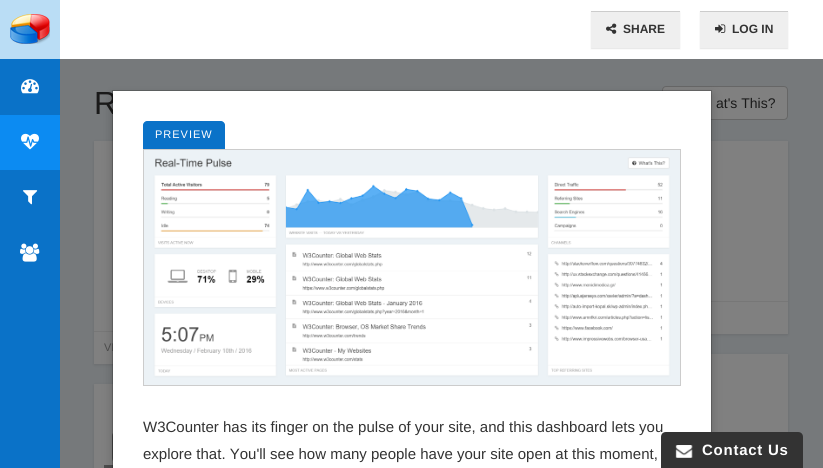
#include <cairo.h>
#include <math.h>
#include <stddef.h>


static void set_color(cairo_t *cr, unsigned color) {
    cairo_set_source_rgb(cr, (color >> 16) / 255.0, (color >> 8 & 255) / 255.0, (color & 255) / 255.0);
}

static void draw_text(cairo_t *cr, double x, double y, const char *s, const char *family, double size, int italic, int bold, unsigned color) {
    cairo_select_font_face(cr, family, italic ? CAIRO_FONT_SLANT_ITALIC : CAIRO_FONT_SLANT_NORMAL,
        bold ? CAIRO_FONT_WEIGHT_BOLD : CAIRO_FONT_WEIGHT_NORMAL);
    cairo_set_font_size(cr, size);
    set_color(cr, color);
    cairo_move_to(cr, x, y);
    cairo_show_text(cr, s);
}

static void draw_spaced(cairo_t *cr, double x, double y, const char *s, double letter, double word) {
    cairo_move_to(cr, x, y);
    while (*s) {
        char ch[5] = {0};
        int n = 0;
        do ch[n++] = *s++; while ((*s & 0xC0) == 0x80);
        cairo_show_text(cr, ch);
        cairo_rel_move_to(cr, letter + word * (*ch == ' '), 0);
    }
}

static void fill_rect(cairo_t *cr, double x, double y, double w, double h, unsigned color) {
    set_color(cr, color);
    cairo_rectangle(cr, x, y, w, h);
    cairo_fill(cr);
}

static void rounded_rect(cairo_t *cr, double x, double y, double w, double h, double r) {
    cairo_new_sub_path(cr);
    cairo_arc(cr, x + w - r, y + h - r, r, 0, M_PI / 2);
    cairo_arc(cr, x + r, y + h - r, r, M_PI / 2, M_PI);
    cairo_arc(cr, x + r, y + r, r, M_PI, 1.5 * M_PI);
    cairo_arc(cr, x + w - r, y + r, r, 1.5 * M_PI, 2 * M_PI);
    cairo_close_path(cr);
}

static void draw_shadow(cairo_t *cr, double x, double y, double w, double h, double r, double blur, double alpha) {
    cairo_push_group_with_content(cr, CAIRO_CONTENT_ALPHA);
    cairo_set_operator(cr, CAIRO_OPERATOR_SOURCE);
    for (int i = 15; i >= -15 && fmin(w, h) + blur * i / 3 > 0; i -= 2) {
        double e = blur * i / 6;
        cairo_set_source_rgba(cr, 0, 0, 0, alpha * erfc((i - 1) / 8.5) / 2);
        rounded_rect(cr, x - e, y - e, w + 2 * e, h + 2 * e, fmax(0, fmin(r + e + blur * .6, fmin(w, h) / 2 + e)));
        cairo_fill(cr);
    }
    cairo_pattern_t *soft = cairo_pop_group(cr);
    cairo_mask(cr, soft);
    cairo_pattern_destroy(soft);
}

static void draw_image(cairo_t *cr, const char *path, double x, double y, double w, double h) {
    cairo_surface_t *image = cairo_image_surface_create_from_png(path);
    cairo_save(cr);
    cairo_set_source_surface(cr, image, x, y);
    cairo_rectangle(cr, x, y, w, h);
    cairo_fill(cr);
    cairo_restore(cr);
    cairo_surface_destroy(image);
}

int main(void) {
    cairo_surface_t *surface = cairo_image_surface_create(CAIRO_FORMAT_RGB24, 823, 468);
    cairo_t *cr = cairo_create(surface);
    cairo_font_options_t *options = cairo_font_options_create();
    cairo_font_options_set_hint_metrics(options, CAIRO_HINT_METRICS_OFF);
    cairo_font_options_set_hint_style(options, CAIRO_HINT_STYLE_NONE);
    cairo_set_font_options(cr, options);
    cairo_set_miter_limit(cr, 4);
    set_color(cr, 0x76797B);
    cairo_paint(cr);
    fill_rect(cr, 0, 59, 60, 409, 0x0A72C8);
    fill_rect(cr, 0, 0, 60, 59, 0xBADDF5);
    draw_image(cr, "assets/img1.png", 10, 14, 40, 30);
    draw_image(cr, "assets/img2.png", 21, 79, 18, 15);
    fill_rect(cr, 0, 115, 60, 55, 0x0C8BF2);
    draw_image(cr, "assets/img3.png", 21, 133, 18, 17);
    draw_image(cr, "assets/img4.png", 23, 190, 15, 15);
    draw_image(cr, "assets/img5.png", 20, 243, 20, 19);
    fill_rect(cr, 60, 0, 763, 59, 0xFFFFFF);
    set_color(cr, 0x000000);
    draw_shadow(cr, 591, 12, 89, 37, 0, 0.5, 0.1);
    fill_rect(cr, 591, 12, 89, 36, 0xEFEFEF);
    fill_rect(cr, 591, 11, 89, 1, 0xCCCCCC);
    draw_image(cr, "assets/img6.png", 606, 23, 11, 11);
    draw_text(cr, 623, 33, "SHARE", "Liberation Sans", 12, 0, 1, 0x333333);
    set_color(cr, 0x000000);
    draw_shadow(cr, 700, 12, 88, 37, 0, 0.5, 0.1);
    fill_rect(cr, 700, 12, 88, 36, 0xEFEFEF);
    fill_rect(cr, 700, 11, 88, 1, 0xCCCCCC);
    draw_image(cr, "assets/img7.png", 715, 24, 11, 9);
    draw_text(cr, 732, 33, "LOG IN", "Liberation Sans", 12, 0, 1, 0x333333);
    draw_text(cr, 94, 114, "R", "Liberation Sans", 32, 0, 0, 0x1A1A1A);
    set_color(cr, 0x808080);
    rounded_rect(cr, 662.5, 86.5, 125, 33, 3.5);
    cairo_fill_preserve(cr);
    set_color(cr, 0x666666);
    cairo_set_line_width(cr, 1);
    cairo_stroke(cr);
    draw_text(cr, 716, 108, "at's This?", "Liberation Sans", 14, 0, 0, 0x1A1A1A);
    set_color(cr, 0x000000);
    draw_shadow(cr, 94, 142, 211, 223, 0, 1.5, 0.1);
    fill_rect(cr, 94, 141, 19, 223, 0x808080);
    fill_rect(cr, 94, 331, 19, 1, 0x777777);
    draw_text(cr, 104, 351, "VI", "Liberation Sans", 11, 0, 0, 0x4D4D4D);
    set_color(cr, 0x000000);
    draw_shadow(cr, 94, 385, 211, 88, 0, 1.5, 0.1);
    fill_rect(cr, 94, 384, 19, 84, 0x808080);
    draw_image(cr, "assets/img8.png", 104, 433, 9, 35);
    set_color(cr, 0x000000);
    draw_shadow(cr, 335, 142, 453, 193, 0, 1.5, 0.1);
    fill_rect(cr, 711, 141, 77, 193, 0x808080);
    fill_rect(cr, 711, 301, 77, 1, 0x777777);
    set_color(cr, 0x000000);
    draw_shadow(cr, 335, 355, 453, 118, 0, 1.5, 0.1);
    fill_rect(cr, 711, 354, 77, 78, 0x808080);
    set_color(cr, 0x000000);
    draw_shadow(cr, 112, 95, 600, 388, 0, 5, 0.2);
    fill_rect(cr, 113, 91, 598, 377, 0xFFFFFF);
    cairo_rectangle(cr, 112.5, 90.5, 599, 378);
    cairo_set_source_rgba(cr, 0, 0, 0, 0.2);
    cairo_stroke(cr);
    set_color(cr, 0x0A72C8);
    cairo_new_path(cr);
    cairo_move_to(cr, 147, 121);
    cairo_line_to(cr, 221, 121);
    cairo_curve_to(cr, 223, 121, 225, 123, 225, 125);
    cairo_line_to(cr, 225, 149);
    cairo_line_to(cr, 143, 149);
    cairo_line_to(cr, 143, 125);
    cairo_curve_to(cr, 143, 123, 145, 121, 147, 121);
    cairo_close_path(cr);
    cairo_fill(cr);
    set_color(cr, 0xFFFFFF);
    draw_spaced(cr, 155, 138, "PREVIEW", 1, 0);
    cairo_rectangle(cr, 143.5, 149.5, 537, 236);
    set_color(cr, 0xCCCCCC);
    cairo_stroke(cr);
    draw_image(cr, "assets/img9.png", 144, 150, 536, 235);
    draw_text(cr, 143, 432, "W3Counter has its finger on the pulse of your site, and this dashboard lets you", "Liberation Sans", 15, 0, 0, 0x333333);
    draw_text(cr, 143, 459, "explore that. You'll see how many people have your site open at this moment,", "Liberation Sans", 15, 0, 0, 0x333333);
    cairo_new_path(cr);
    cairo_move_to(cr, 666, 432);
    cairo_line_to(cr, 798, 432);
    cairo_curve_to(cr, 801, 432, 803, 434, 803, 437);
    cairo_line_to(cr, 803, 468);
    cairo_line_to(cr, 661, 468);
    cairo_line_to(cr, 661, 437);
    cairo_curve_to(cr, 661, 434, 663, 432, 666, 432);
    cairo_close_path(cr);
    cairo_fill(cr);
    draw_image(cr, "assets/img10.png", 675, 445, 18, 13);
    cairo_select_font_face(cr, "Liberation Sans", CAIRO_FONT_SLANT_NORMAL, CAIRO_FONT_WEIGHT_BOLD);
    set_color(cr, 0xFFFFFF);
    draw_spaced(cr, 702, 455, "Contact Us", 0.75, 0);
    cairo_surface_write_to_png(surface, "output.png");
    cairo_font_options_destroy(options);
    cairo_destroy(cr);
    cairo_surface_destroy(surface);
    return 0;
}
